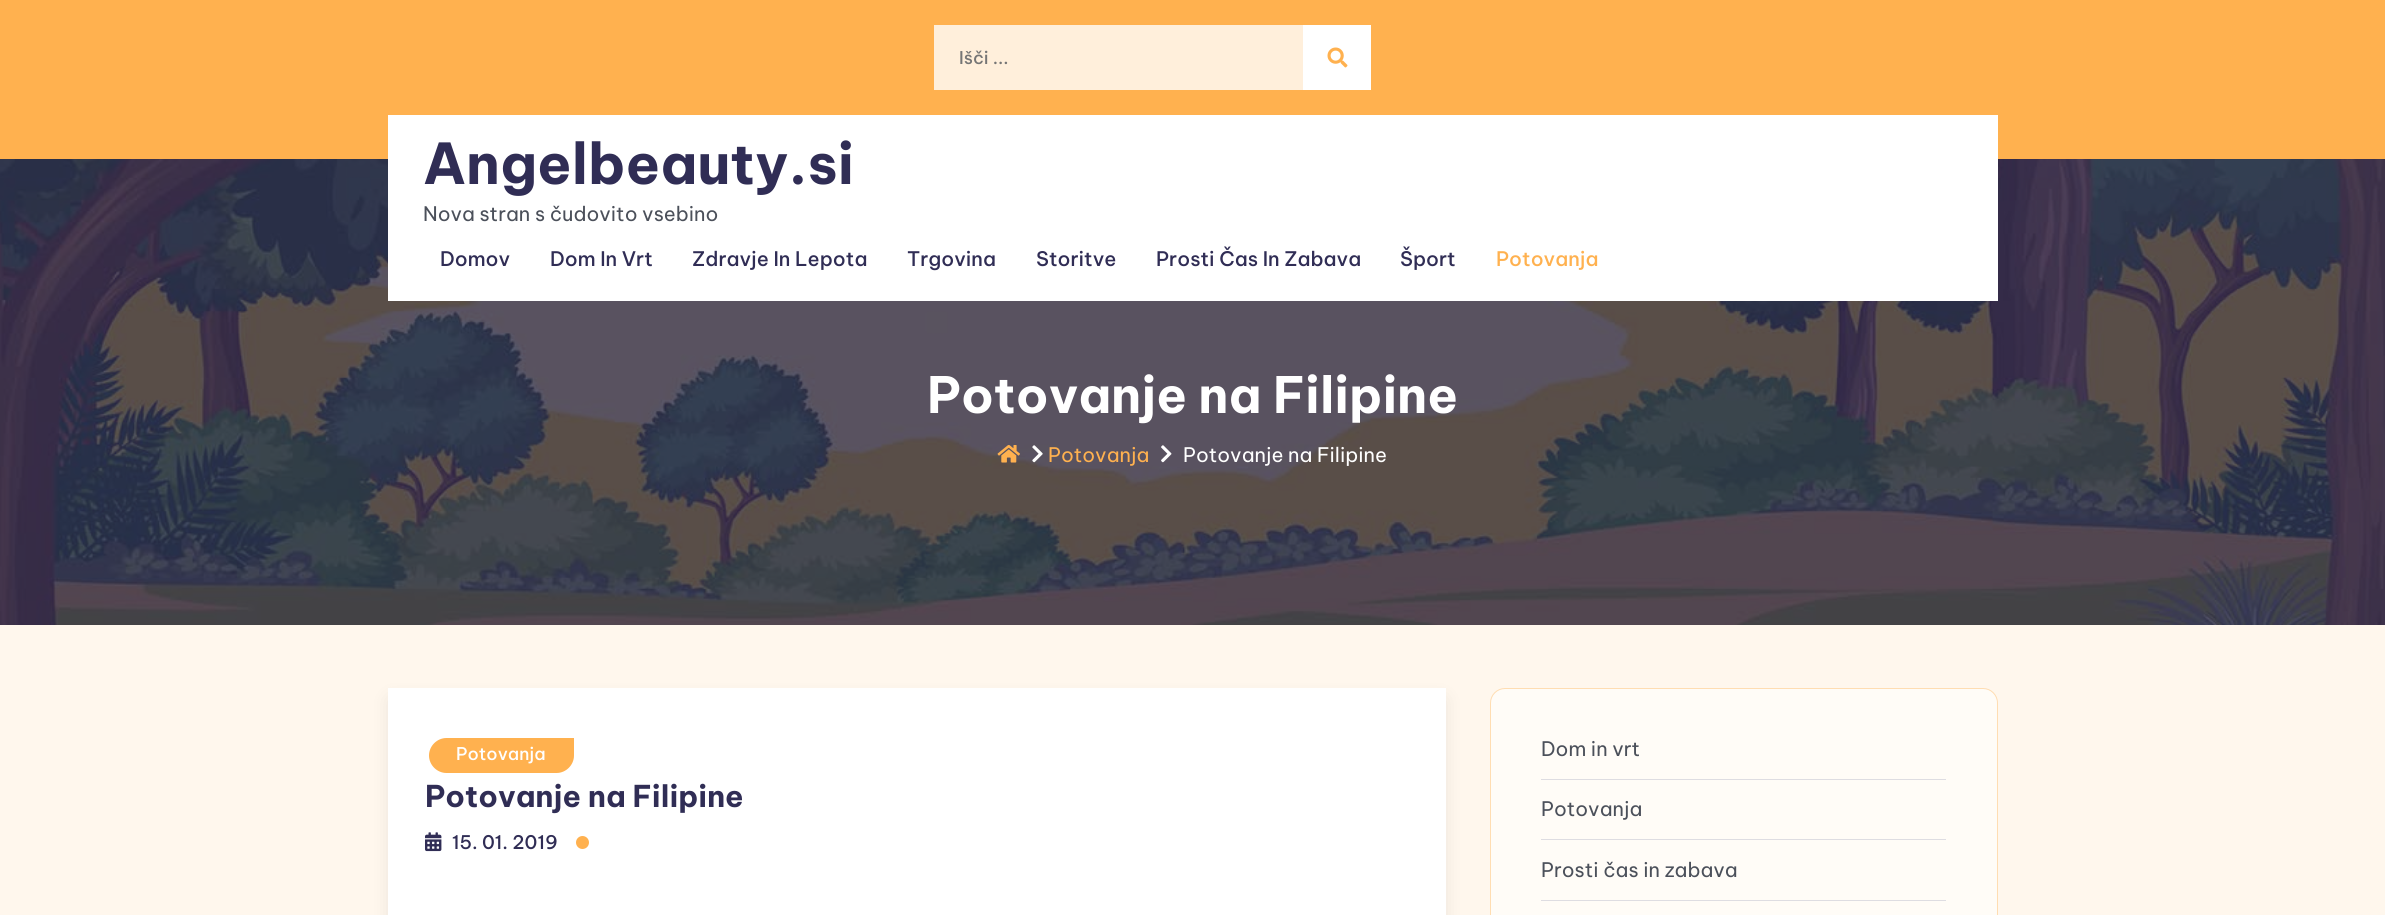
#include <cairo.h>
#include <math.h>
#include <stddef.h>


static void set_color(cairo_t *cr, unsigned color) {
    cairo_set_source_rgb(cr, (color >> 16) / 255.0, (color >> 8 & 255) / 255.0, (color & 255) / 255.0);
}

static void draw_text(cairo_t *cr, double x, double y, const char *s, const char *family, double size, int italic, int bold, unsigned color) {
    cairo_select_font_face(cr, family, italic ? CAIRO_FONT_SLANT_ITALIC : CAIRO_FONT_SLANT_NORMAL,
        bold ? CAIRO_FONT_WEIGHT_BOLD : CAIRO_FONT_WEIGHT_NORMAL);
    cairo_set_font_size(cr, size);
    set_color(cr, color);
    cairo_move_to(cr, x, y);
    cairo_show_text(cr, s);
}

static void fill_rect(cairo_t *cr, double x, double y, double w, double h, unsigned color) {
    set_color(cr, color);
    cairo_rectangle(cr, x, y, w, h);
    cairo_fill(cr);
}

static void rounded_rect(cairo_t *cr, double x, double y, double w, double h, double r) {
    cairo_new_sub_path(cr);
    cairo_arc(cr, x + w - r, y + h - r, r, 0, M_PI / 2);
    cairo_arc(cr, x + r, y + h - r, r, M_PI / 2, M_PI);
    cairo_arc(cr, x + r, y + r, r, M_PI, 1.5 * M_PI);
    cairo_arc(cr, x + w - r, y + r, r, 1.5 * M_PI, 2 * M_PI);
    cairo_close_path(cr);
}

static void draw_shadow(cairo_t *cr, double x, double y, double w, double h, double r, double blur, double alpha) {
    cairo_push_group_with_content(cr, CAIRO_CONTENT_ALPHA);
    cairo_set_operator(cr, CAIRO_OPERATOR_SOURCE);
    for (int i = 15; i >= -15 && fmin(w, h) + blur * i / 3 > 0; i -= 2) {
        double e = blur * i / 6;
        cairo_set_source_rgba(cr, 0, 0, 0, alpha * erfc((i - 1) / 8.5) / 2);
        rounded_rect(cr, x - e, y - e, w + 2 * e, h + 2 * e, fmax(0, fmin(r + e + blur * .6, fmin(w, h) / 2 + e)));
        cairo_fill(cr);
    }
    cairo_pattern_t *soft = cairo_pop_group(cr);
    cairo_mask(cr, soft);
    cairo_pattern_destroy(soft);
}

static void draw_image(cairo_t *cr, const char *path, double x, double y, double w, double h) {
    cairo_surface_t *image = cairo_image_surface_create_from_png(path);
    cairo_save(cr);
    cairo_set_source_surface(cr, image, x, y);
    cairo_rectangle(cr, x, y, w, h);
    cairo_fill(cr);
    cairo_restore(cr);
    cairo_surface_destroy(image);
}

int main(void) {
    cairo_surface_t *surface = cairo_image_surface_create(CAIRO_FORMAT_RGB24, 2385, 915);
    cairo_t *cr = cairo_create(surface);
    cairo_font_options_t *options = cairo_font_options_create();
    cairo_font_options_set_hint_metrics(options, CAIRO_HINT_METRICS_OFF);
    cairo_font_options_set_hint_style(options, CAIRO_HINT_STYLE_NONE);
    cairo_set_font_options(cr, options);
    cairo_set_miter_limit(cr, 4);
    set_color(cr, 0xFFF7ED);
    cairo_paint(cr);
    fill_rect(cr, 0, 0, 2385, 159, 0xFFB14F);
    fill_rect(cr, 934, 25, 369, 65, 0xFFEFDB);
    draw_text(cr, 959, 64, "Išči ...", "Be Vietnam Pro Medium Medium", 17.5, 0, 0, 0x757575);
    fill_rect(cr, 1303, 25, 68, 65, 0xFFFFFF);
    draw_image(cr, "assets/img1.png", 1327, 47, 21, 21);
    draw_image(cr, "assets/img2.png", 0, 159, 2385, 466);
    fill_rect(cr, 388, 115, 1610, 186, 0xFFFFFF);
    draw_text(cr, 423, 184, "Angelbeauty.si", "Be Vietnam Pro", 56.25, 0, 1, 0x302D55);
    draw_text(cr, 423, 221, "Nova stran s čudovito vsebino", "Be Vietnam Pro", 20, 0, 0, 0x4B505A);
    draw_text(cr, 440, 266, "Domov", "Be Vietnam Pro Medium Medium", 20, 0, 0, 0x302D55);
    draw_text(cr, 550, 266, "Dom In Vrt", "Be Vietnam Pro Medium Medium", 20, 0, 0, 0x302D55);
    draw_text(cr, 692, 266, "Zdravje In Lepota", "Be Vietnam Pro Medium Medium", 20, 0, 0, 0x302D55);
    draw_text(cr, 907, 266, "Trgovina", "Be Vietnam Pro Medium Medium", 20, 0, 0, 0x302D55);
    draw_text(cr, 1036, 266, "Storitve", "Be Vietnam Pro Medium Medium", 20, 0, 0, 0x302D55);
    draw_text(cr, 1156, 266, "Prosti Čas In Zabava", "Be Vietnam Pro Medium Medium", 20, 0, 0, 0x302D55);
    draw_text(cr, 1400, 266, "Šport", "Be Vietnam Pro Medium Medium", 20, 0, 0, 0x302D55);
    draw_text(cr, 1496, 266, "Potovanja", "Be Vietnam Pro Medium Medium", 20, 0, 0, 0xFFB14F);
    draw_text(cr, 927, 413, "Potovanje na Filipine", "Be Vietnam Pro", 50, 0, 1, 0xFFFFFF);
    draw_image(cr, "assets/img3.png", 997, 445, 23, 18);
    draw_image(cr, "assets/img4.png", 1032, 445, 11, 18);
    draw_text(cr, 1048, 462, "Potovanja", "Be Vietnam Pro", 20, 0, 0, 0xFFB14F);
    draw_image(cr, "assets/img5.png", 1161, 445, 11, 18);
    draw_text(cr, 1183, 462, "Potovanje na Filipine", "Be Vietnam Pro", 20, 0, 0, 0xFFFFFF);
    set_color(cr, 0x000000);
    draw_shadow(cr, 391, 700, 1052, 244, 0, 9.5, 0.1);
    fill_rect(cr, 388, 688, 1058, 227, 0xFFFFFF);
    set_color(cr, 0xFFB14F);
    cairo_new_path(cr);
    cairo_move_to(cr, 446.5, 738);
    cairo_line_to(cr, 574, 738);
    cairo_line_to(cr, 574, 755.5);
    cairo_curve_to(cr, 574, 765, 566, 773, 556.5, 773);
    cairo_line_to(cr, 446.5, 773);
    cairo_curve_to(cr, 437, 773, 429, 765, 429, 755.5);
    cairo_curve_to(cr, 429, 746, 437, 738, 446.5, 738);
    cairo_close_path(cr);
    cairo_fill(cr);
    draw_text(cr, 456, 760, "Potovanja", "Be Vietnam Pro Medium Medium", 17.5, 0, 0, 0xFFFFFF);
    draw_text(cr, 425, 807, "Potovanje na Filipine", "Be Vietnam Pro", 30, 0, 1, 0x302D55);
    draw_image(cr, "assets/img6.png", 425, 832, 17, 20);
    draw_text(cr, 452, 849, "15. 01. 2019", "Be Vietnam Pro Medium Medium", 18.75, 0, 0, 0x302D55);
    set_color(cr, 0xFFB14F);
    cairo_new_path(cr);
    cairo_arc(cr, 582.5, 842.5, 6.5, 0, 2 * M_PI);
    cairo_fill(cr);
    set_color(cr, 0xFFFCF7);
    rounded_rect(cr, 1490.5, 688.5, 507, 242, 14.5);
    cairo_fill_preserve(cr);
    set_color(cr, 0xFFDDB2);
    cairo_set_line_width(cr, 1);
    cairo_stroke(cr);
    fill_rect(cr, 1541, 779, 405, 1, 0xDEDDE2);
    draw_text(cr, 1541, 756, "Dom in vrt", "Be Vietnam Pro", 20, 0, 0, 0x4B505A);
    fill_rect(cr, 1541, 839, 405, 1, 0xDEDDE2);
    draw_text(cr, 1541, 816, "Potovanja", "Be Vietnam Pro", 20, 0, 0, 0x4B505A);
    fill_rect(cr, 1541, 900, 405, 1, 0xDEDDE2);
    draw_text(cr, 1541, 877, "Prosti čas in zabava", "Be Vietnam Pro", 20, 0, 0, 0x4B505A);
    cairo_surface_write_to_png(surface, "output.png");
    cairo_font_options_destroy(options);
    cairo_destroy(cr);
    cairo_surface_destroy(surface);
    return 0;
}
